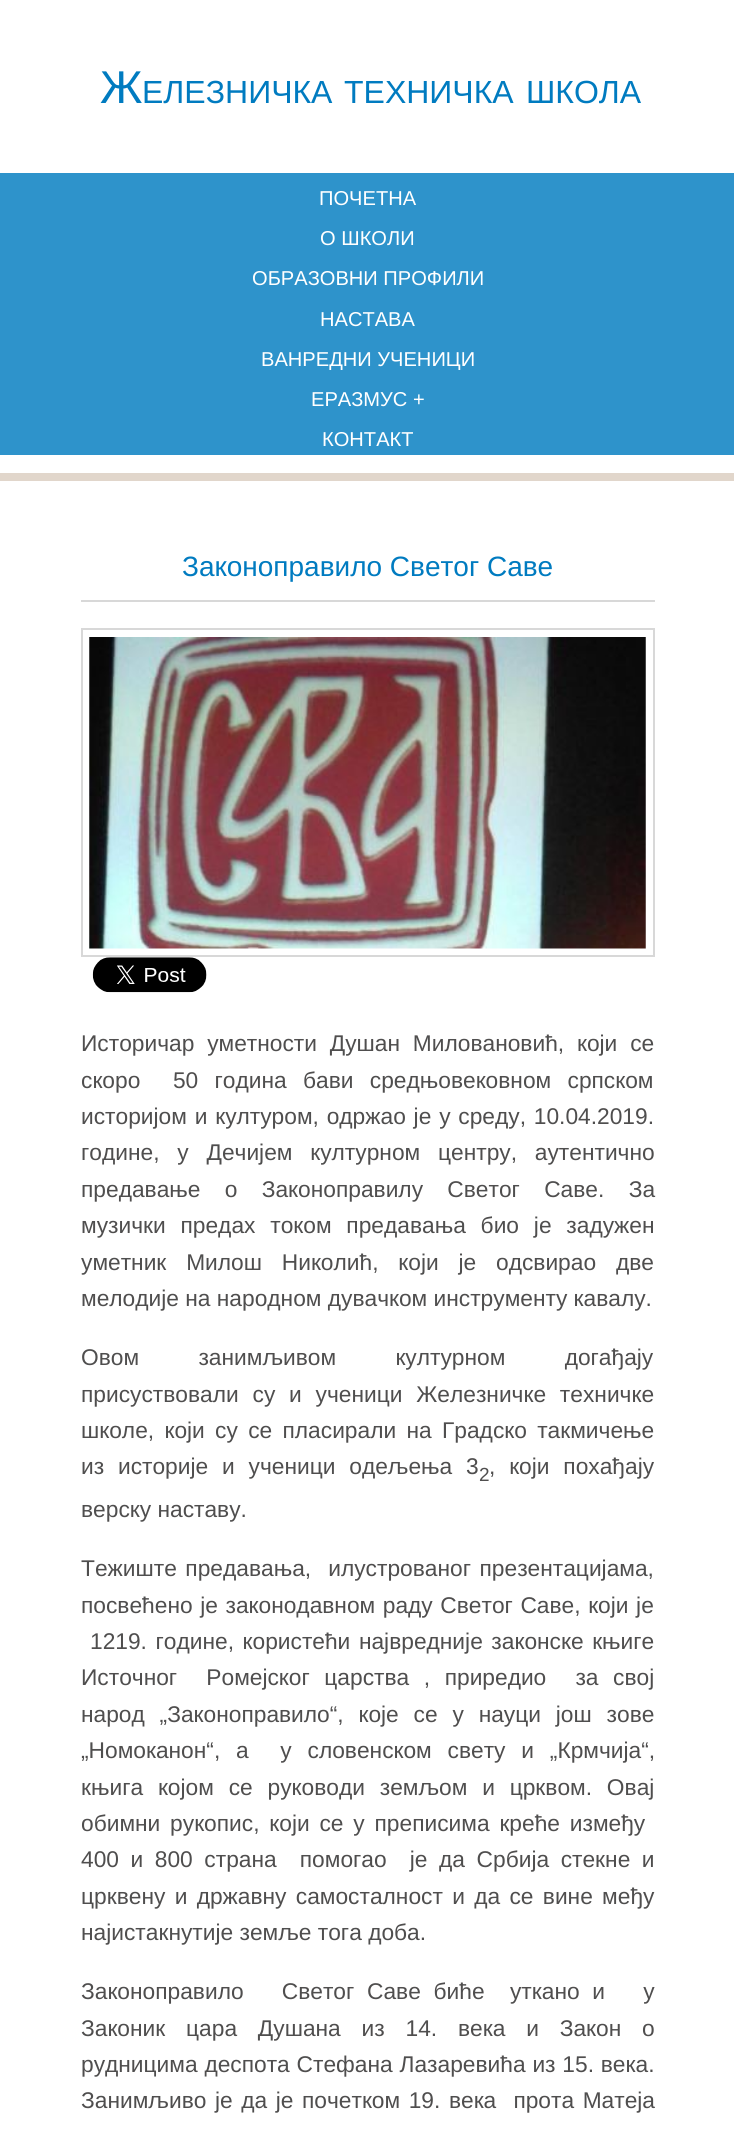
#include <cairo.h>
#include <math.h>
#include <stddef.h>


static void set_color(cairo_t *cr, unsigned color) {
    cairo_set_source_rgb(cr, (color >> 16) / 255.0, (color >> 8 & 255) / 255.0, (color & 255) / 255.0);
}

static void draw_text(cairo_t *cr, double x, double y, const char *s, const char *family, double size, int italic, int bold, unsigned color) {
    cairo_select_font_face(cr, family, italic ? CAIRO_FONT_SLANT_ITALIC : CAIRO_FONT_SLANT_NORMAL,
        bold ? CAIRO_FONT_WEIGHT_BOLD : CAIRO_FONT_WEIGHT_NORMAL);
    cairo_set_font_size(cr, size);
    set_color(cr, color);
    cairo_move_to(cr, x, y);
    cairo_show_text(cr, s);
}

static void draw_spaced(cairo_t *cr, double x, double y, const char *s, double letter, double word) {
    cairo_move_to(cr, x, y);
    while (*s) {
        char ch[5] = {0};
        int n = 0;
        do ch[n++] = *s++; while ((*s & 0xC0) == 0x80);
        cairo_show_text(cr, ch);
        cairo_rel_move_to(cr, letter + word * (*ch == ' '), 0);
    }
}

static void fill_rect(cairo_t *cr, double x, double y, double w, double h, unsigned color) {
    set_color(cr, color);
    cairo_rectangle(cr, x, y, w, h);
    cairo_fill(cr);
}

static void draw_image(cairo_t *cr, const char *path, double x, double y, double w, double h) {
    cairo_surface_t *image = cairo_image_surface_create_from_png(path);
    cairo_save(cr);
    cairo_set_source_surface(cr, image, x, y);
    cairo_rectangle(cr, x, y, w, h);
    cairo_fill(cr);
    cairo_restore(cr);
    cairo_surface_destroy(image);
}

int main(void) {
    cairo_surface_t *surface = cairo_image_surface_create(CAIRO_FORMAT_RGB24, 734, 2129);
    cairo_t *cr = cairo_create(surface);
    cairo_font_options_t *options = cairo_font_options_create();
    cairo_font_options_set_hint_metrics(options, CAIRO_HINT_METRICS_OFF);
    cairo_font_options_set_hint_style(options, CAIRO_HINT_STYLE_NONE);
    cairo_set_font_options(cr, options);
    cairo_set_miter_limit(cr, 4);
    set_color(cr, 0xFFFFFF);
    cairo_paint(cr);
    draw_text(cr, 100, 103, "Ж", "Liberation Sans", 46, 0, 0, 0x007BC0);
    draw_text(cr, 142, 103, "ЕЛЕЗНИЧКA", "Liberation Sans", 32, 0, 0, 0x007BC0);
    draw_text(cr, 344, 103, "ТЕХНИЧКА", "Liberation Sans", 32, 0, 0, 0x007BC0);
    draw_text(cr, 526, 103, "ШКОЛА", "Liberation Sans", 32, 0, 0, 0x007BC0);
    fill_rect(cr, 0, 173, 734, 282, 0x2E93CB);
    draw_text(cr, 319, 205, "ПОЧЕТНА", "Liberation Sans", 20.1, 0, 0, 0xFFFFFF);
    draw_text(cr, 320, 245, "О ШКОЛИ", "Liberation Sans", 20.1, 0, 0, 0xFFFFFF);
    draw_text(cr, 252, 285, "ОБРАЗОВНИ ПРОФИЛИ", "Liberation Sans", 20.1, 0, 0, 0xFFFFFF);
    draw_text(cr, 320, 326, "НАСТАВА", "Liberation Sans", 20.1, 0, 0, 0xFFFFFF);
    draw_text(cr, 261, 366, "ВАНРЕДНИ УЧЕНИЦИ", "Liberation Sans", 20.1, 0, 0, 0xFFFFFF);
    draw_text(cr, 311, 406, "ЕРАЗМУС +", "Liberation Sans", 20.1, 0, 0, 0xFFFFFF);
    draw_text(cr, 322, 446, "КОНТАКТ", "Liberation Sans", 20.1, 0, 0, 0xFFFFFF);
    fill_rect(cr, 0, 473, 734, 8, 0xE1D6CB);
    fill_rect(cr, 81, 600, 574, 2, 0xD8D8D8);
    draw_text(cr, 182, 576, "Законоправило Светог Саве", "Liberation Sans", 28, 0, 0, 0x007BC0);
    cairo_rectangle(cr, 82, 629, 572, 327);
    set_color(cr, 0xD8D8D8);
    cairo_stroke(cr);
    draw_image(cr, "assets/img1.png", 89, 637, 557, 312);
    draw_image(cr, "assets/img2.png", 92, 957, 115, 36);
    cairo_set_font_size(cr, 22.75);
    set_color(cr, 0x4F4E4E);
    draw_spaced(cr, 81, 1051, "Историчар уметности Душан Миловановић, који се", 0, 6.5);
    draw_spaced(cr, 81, 1088, "скоро  50 година бави средњовековном српском", 0, 10);
    draw_spaced(cr, 81, 1124, "историјом и културом, одржао је у среду, 10.04.2019.", 0, 1.5);
    draw_spaced(cr, 81, 1160, "године, у Дечијем културном центру, аутентично", 0, 11.5);
    draw_spaced(cr, 81, 1197, "предавање о Законоправилу Светог Саве. За", 0, 18);
    draw_spaced(cr, 81, 1233, "музички предах током предавања био је задужен", 0, 8.5);
    draw_spaced(cr, 81, 1270, "уметник Милош Николић, који је одсвирао две", 0, 13.5);
    draw_text(cr, 81, 1306, "мелодије на народном дувачком инструменту кавалу.", "Liberation Sans", 22.75, 0, 0, 0x4F4E4E);
    draw_spaced(cr, 81, 1365, "Овом занимљивом културном догађају", 0, 53);
    draw_spaced(cr, 81, 1402, "присуствовали су и ученици Железничке техничке", 0, 7.5);
    draw_spaced(cr, 81, 1438, "школе, који су се пласирали на Градско такмичење", 0, 4);
    draw_spaced(cr, 81, 1474, "из историје и ученици одељења 3", 0, 7.5);
    draw_text(cr, 479, 1481, "2", "Liberation Sans", 19, 0, 0, 0x4F4E4E);
    cairo_set_font_size(cr, 22.75);
    draw_spaced(cr, 489, 1474, ", који похађају", 0, 7.5);
    draw_text(cr, 81, 1517, "верску наставу.", "Liberation Sans", 22.75, 0, 0, 0x4F4E4E);
    draw_spaced(cr, 81, 1576, "Тежиште предавања,  илустрованог презентацијама,", 0, 2.25);
    draw_spaced(cr, 81, 1613, "посвећено је законодавном раду Светог Саве, који је", 0, 1.25);
    draw_spaced(cr, 90, 1649, "1219. године, користећи највредније законске књиге", 0, 2.25);
    draw_spaced(cr, 81, 1685, "Источног  Ромејског царства , приредио  за свој", 0, 8.25);
    draw_spaced(cr, 81, 1722, "народ „Законоправило“, које се у науци још зове", 0, 8.5);
    draw_spaced(cr, 81, 1758, "„Номоканон“, а  у словенском свету и „Крмчија“,", 0, 9.5);
    draw_spaced(cr, 81, 1795, "књига којом се руководи земљом и црквом. Овај", 0, 8.5);
    draw_spaced(cr, 81, 1831, "обимни рукопис, који се у преписима креће између", 0, 3.5);
    draw_spaced(cr, 81, 1867, "400 и 800 страна  помогао  је да Србија стекне и", 0, 5.25);
    draw_spaced(cr, 81, 1904, "црквену и државну самосталност и да се вине међу", 0, 3);
    draw_text(cr, 81, 1940, "најистакнутије земље тога доба.", "Liberation Sans", 22.75, 0, 0, 0x4F4E4E);
    draw_spaced(cr, 81, 1999, "Законоправило   Светог Саве биће  уткано и   у", 0, 6.4);
    draw_spaced(cr, 81, 2036, "Законик цара Душана из 14. века и Закон о", 0, 14.5);
    draw_spaced(cr, 81, 2072, "рудницима деспота Стефана Лазаревића из 15. века.", 0, 0.5);
    draw_spaced(cr, 81, 2108, "Занимљиво је да је почетком 19. века  прота Матеја", 0, 2.25);
    cairo_surface_write_to_png(surface, "output.png");
    cairo_font_options_destroy(options);
    cairo_destroy(cr);
    cairo_surface_destroy(surface);
    return 0;
}
